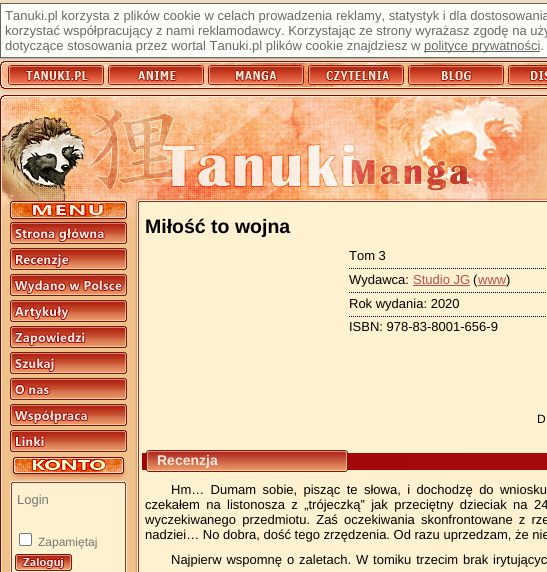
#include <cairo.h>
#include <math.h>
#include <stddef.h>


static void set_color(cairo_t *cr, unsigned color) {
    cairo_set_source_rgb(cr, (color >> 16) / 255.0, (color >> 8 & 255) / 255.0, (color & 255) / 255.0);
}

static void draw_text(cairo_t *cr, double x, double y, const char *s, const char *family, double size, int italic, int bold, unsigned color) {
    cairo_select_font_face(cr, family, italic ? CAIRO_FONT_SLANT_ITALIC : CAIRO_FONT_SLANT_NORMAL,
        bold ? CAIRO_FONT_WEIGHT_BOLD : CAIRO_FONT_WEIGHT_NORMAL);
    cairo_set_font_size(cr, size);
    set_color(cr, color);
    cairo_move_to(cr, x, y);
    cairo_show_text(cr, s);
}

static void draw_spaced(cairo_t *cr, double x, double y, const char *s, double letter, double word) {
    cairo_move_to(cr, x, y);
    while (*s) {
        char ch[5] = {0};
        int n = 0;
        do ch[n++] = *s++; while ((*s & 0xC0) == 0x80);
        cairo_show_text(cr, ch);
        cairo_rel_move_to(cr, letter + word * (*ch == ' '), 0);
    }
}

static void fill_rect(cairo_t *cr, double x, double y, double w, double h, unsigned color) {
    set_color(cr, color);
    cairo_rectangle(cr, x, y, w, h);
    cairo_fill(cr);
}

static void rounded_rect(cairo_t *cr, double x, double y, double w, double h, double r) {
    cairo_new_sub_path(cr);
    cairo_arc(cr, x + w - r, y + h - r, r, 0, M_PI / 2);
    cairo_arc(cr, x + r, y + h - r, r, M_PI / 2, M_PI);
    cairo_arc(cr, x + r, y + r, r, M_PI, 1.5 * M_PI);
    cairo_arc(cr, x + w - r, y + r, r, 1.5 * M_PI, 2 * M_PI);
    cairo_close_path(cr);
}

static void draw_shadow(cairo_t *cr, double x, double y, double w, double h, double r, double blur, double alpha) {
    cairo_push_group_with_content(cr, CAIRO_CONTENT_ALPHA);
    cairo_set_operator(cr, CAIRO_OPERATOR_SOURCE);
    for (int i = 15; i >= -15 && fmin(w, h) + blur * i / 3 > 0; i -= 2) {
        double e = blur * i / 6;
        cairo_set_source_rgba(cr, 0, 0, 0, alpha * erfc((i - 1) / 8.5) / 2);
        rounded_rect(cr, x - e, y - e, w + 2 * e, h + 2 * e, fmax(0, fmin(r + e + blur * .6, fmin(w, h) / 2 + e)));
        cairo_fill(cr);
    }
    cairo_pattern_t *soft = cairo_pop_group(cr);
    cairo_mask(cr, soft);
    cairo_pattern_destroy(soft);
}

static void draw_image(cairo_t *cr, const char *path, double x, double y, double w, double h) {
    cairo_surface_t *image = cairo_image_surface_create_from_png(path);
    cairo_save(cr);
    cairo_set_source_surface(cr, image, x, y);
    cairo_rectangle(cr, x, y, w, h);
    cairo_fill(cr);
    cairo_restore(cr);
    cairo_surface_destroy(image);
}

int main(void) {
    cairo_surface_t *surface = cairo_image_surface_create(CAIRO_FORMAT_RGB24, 547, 572);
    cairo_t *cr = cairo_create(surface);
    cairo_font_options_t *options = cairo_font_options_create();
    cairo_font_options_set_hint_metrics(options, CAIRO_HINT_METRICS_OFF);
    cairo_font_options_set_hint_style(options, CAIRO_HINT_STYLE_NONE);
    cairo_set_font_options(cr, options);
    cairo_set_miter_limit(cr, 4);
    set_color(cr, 0xF0DCBE);
    cairo_paint(cr);
    set_color(cr, 0x000000);
    draw_shadow(cr, 0, 4, 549, 55, 0, 0.5, 0.2);
    set_color(cr, 0xFFFFFA);
    cairo_rectangle(cr, 0.5, 3.5, 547, 54);
    cairo_fill_preserve(cr);
    set_color(cr, 0x666666);
    cairo_set_line_width(cr, 1);
    cairo_stroke(cr);
    draw_text(cr, 5, 20, "Tanuki.pl korzysta z plików cookie w celach prowadzenia reklamy, statystyk i dla dostosowania", "Liberation Sans", 13, 0, 0, 0x666666);
    draw_text(cr, 5, 35, "korzystać współpracujący z nami reklamodawcy. Korzystając ze strony wyrażasz zgodę na uży", "Liberation Sans", 13, 0, 0, 0x666666);
    draw_text(cr, 5, 50, "dotyczące stosowania przez wortal Tanuki.pl plików cookie znajdziesz w", "Liberation Sans", 13, 0, 0, 0x666666);
    fill_rect(cr, 424, 51, 116, 1, 0x666666);
    draw_text(cr, 424, 50, "polityce prywatności.", "Liberation Sans", 13, 0, 0, 0x666666);
    draw_image(cr, "assets/img1.png", 0, 61, 547, 33);
    draw_image(cr, "assets/img2.png", 0, 197, 547, 375);
    draw_image(cr, "assets/img3.png", 0, 95, 547, 102);
    draw_image(cr, "assets/img4.png", 2, 197, 545, 21);
    draw_image(cr, "assets/img5.png", 10, 201, 117, 278);
    draw_image(cr, "assets/img6.png", 15, 459, 106, 21);
    draw_image(cr, "assets/img7.png", 10, 481, 117, 91);
    draw_text(cr, 17, 504, "Login", "Liberation Sans", 13, 0, 0, 0x757575);
    set_color(cr, 0xFFFFFF);
    rounded_rect(cr, 19.5, 533.5, 12, 12, 1.5);
    cairo_fill_preserve(cr);
    set_color(cr, 0x767676);
    cairo_stroke(cr);
    draw_text(cr, 38, 546, "Zapamiętaj", "Liberation Sans", 12, 0, 0, 0x757575);
    draw_image(cr, "assets/img8.png", 15, 554, 57, 17);
    draw_text(cr, 145, 233, "Miłość to wojna", "Liberation Sans", 19.5, 0, 1, 0x000000);
    draw_text(cr, 349, 260, "Tom 3", "Liberation Sans", 13, 0, 0, 0x000000);
    cairo_new_path(cr);
    cairo_move_to(cr, 349, 268.5);
    cairo_line_to(cr, 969, 268.5);
    cairo_set_dash(cr, (double[]){1, 1}, 2, 0);
    cairo_stroke(cr);
    draw_text(cr, 349, 284, "Wydawca:", "Liberation Sans", 13, 0, 0, 0x000000);
    draw_text(cr, 413, 284, "Studio JG", "Liberation Sans", 13, 0, 0, 0xBA5050);
    fill_rect(cr, 413, 285, 57, 1, 0xBA5050);
    draw_text(cr, 473, 284, "(", "Liberation Sans", 13, 0, 0, 0x000000);
    draw_text(cr, 478, 284, "www", "Liberation Sans", 13, 0, 0, 0xBA5050);
    fill_rect(cr, 478, 285, 28, 1, 0xBA5050);
    draw_text(cr, 506, 284, ")", "Liberation Sans", 13, 0, 0, 0x000000);
    cairo_new_path(cr);
    cairo_move_to(cr, 349, 292.5);
    cairo_line_to(cr, 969, 292.5);
    cairo_stroke(cr);
    draw_text(cr, 349, 308, "Rok wydania: 2020", "Liberation Sans", 13, 0, 0, 0x000000);
    cairo_new_path(cr);
    cairo_move_to(cr, 349, 316.5);
    cairo_line_to(cr, 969, 316.5);
    cairo_stroke(cr);
    draw_text(cr, 349, 331, "ISBN: 978-83-8001-656-9", "Liberation Sans", 13, 0, 0, 0x000000);
    draw_text(cr, 537, 423, "D", "Liberation Sans", 12, 0, 0, 0x000000);
    draw_image(cr, "assets/img9.png", 142, 450, 405, 22);
    draw_text(cr, 157, 465, "Recenzja", "Liberation Sans", 14, 0, 1, 0xFAEBDE);
    cairo_select_font_face(cr, "Liberation Sans", CAIRO_FONT_SLANT_NORMAL, CAIRO_FONT_WEIGHT_NORMAL);
    cairo_set_font_size(cr, 13);
    set_color(cr, 0x000000);
    draw_spaced(cr, 171, 494, "Hm… Dumam sobie, pisząc te słowa, i dochodzę do wniosku", 0, 2.75);
    draw_spaced(cr, 145, 509, "czekałem na listonosza z „trójeczką” jak przeciętny dzieciak na 24", 0, 2.75);
    draw_spaced(cr, 145, 524, "wyczekiwanego przedmiotu. Zaś oczekiwania skonfrontowane z rze", 0, 2.5);
    draw_text(cr, 145, 539, "nadziei… No dobra, dość tego zrzędzenia. Od razu uprzedzam, że nie", "Liberation Sans", 13, 0, 0, 0x000000);
    draw_spaced(cr, 171, 564, "Najpierw wspomnę o zaletach. W tomiku trzecim brak irytującyc", 0, 1.25);
    cairo_surface_write_to_png(surface, "output.png");
    cairo_font_options_destroy(options);
    cairo_destroy(cr);
    cairo_surface_destroy(surface);
    return 0;
}
